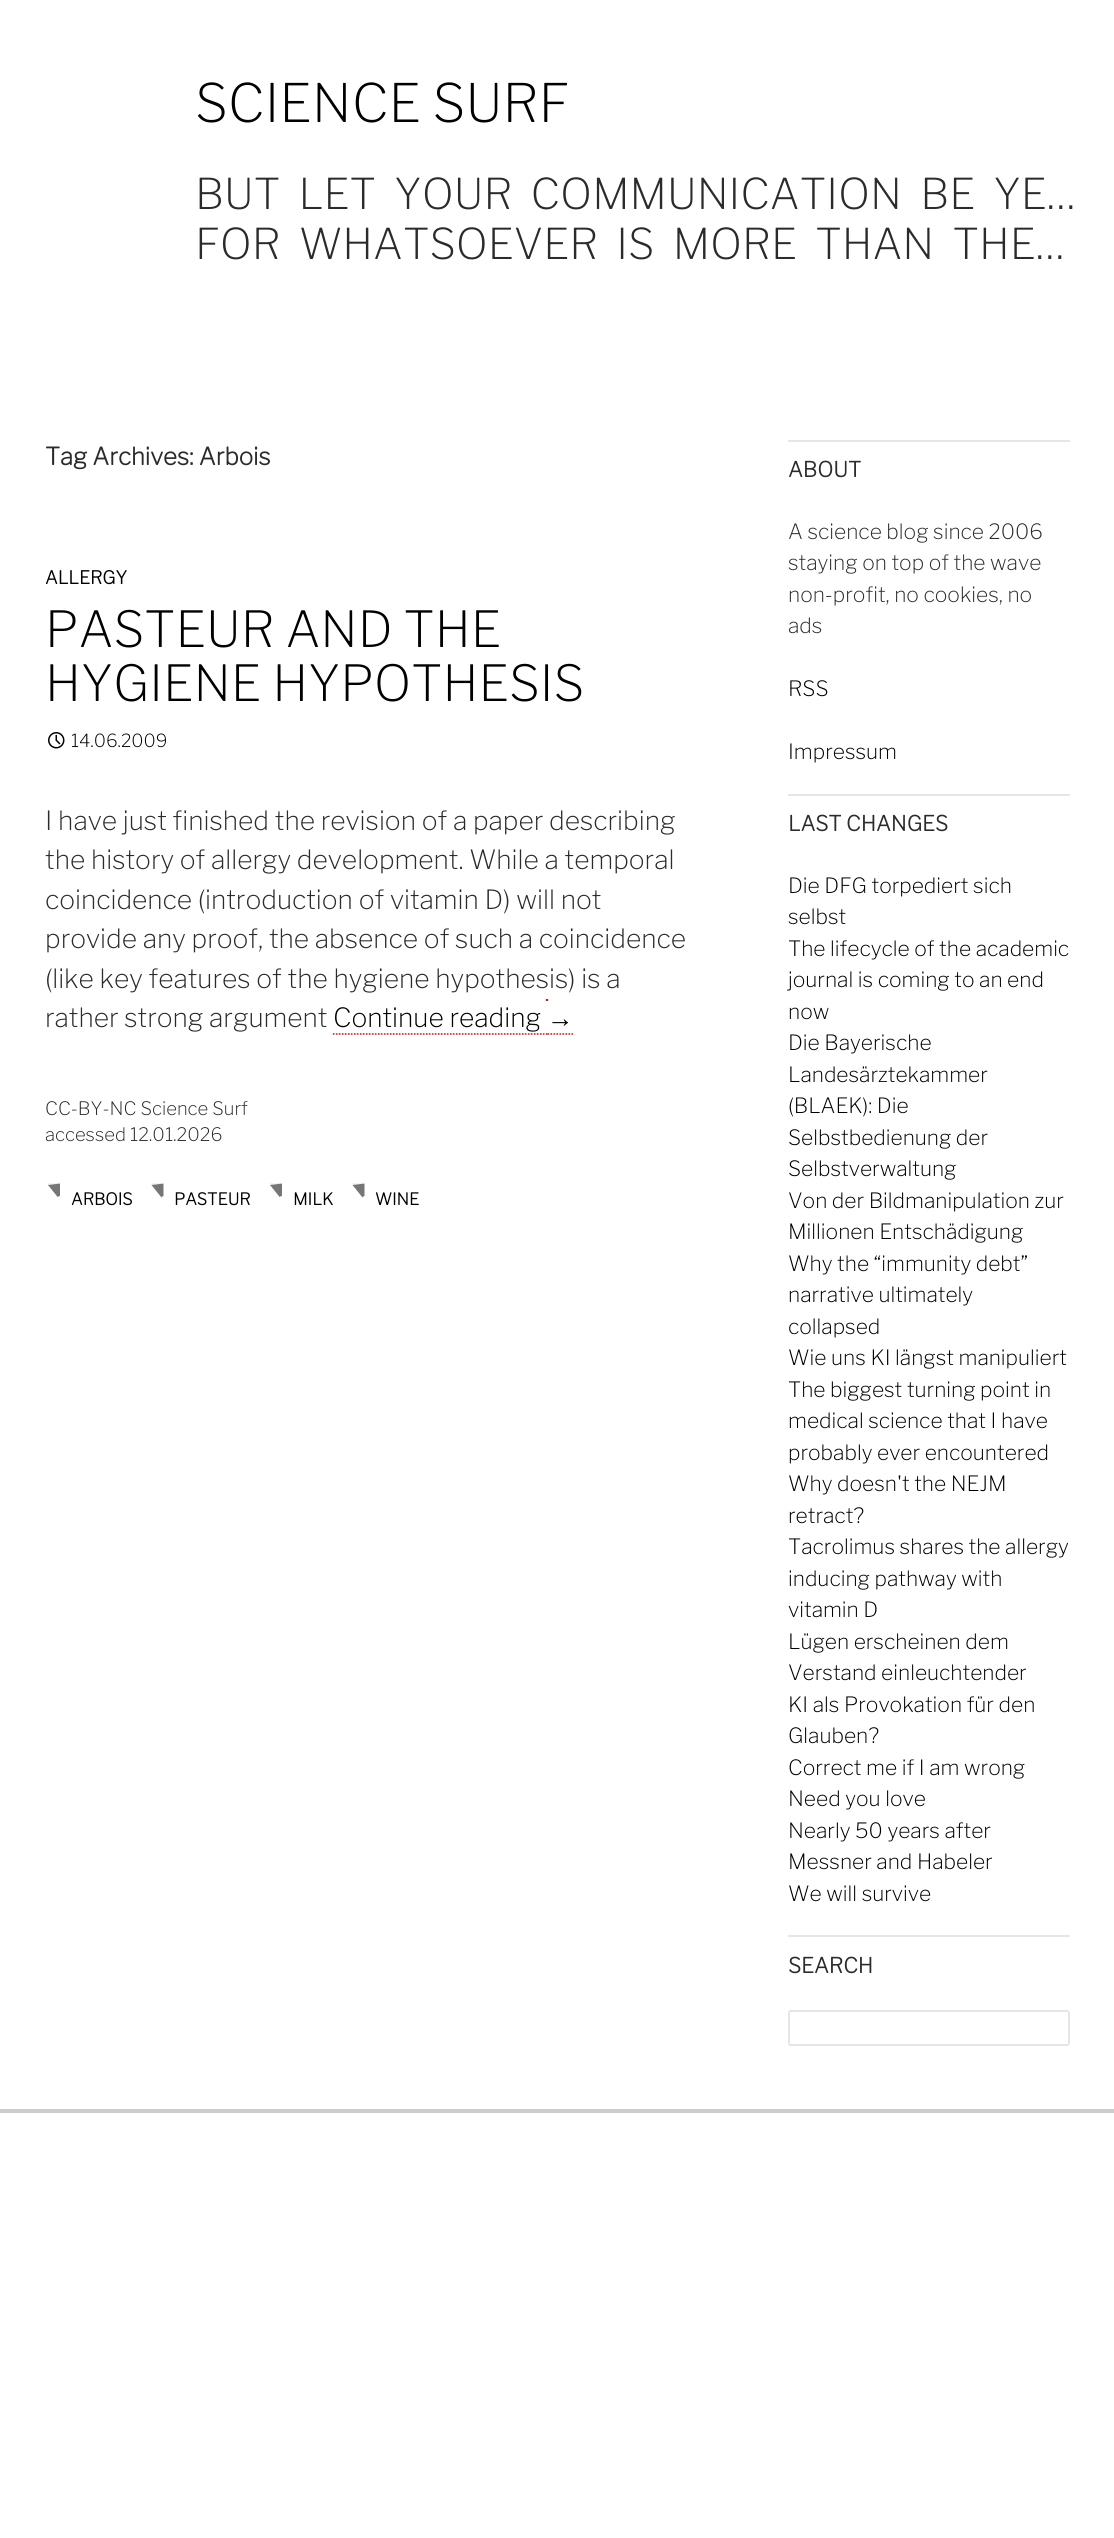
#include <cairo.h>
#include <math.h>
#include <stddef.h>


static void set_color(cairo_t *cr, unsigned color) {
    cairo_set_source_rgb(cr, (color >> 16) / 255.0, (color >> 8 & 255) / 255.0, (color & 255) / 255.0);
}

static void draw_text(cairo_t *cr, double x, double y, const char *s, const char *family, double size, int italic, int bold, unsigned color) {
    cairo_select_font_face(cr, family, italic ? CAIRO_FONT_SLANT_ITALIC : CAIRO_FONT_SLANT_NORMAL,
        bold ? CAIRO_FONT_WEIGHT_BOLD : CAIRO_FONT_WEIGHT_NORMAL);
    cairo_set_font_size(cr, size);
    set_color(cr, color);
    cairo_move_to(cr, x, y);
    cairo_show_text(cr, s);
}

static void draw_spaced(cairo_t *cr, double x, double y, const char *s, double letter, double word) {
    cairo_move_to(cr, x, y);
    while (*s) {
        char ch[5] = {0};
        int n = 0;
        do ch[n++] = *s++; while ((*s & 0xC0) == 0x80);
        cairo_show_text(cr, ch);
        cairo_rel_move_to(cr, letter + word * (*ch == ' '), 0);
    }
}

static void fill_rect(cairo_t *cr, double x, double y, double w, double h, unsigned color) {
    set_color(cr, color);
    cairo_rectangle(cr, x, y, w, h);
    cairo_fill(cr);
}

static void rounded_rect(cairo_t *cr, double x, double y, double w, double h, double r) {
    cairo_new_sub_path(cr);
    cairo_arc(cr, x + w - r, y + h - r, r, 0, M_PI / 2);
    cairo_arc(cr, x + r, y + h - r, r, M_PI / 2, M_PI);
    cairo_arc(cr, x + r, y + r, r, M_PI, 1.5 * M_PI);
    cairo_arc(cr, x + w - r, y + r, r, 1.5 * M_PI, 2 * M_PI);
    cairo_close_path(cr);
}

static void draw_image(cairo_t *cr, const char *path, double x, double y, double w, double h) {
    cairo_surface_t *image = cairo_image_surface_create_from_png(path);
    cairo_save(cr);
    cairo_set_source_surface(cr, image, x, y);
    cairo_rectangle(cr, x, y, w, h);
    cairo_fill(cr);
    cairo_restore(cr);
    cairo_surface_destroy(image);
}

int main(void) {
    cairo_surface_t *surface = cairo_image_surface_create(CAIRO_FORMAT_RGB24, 1114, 2538);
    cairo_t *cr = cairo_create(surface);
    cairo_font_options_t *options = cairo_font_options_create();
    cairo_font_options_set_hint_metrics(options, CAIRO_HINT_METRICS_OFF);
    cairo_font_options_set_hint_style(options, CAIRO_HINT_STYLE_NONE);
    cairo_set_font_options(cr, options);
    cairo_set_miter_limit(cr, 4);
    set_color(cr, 0xFFFFFF);
    cairo_paint(cr);
    draw_text(cr, 195, 122, "SCIENCE SURF", "Libre Franklin ExtraLight", 52.75, 0, 0, 0x000000);
    cairo_set_font_size(cr, 42.25);
    set_color(cr, 0x2B2B2B);
    draw_spaced(cr, 195, 209, "BUT LET YOUR COMMUNICATION BE YE…", 0, 9);
    draw_spaced(cr, 195, 259, "FOR WHATSOEVER IS MORE THAN THE…", 0, 9);
    draw_text(cr, 45, 465, "Tag Archives: Arbois", "Libre Franklin", 24, 0, 1, 0x2B2B2B);
    draw_text(cr, 45, 584, "ALLERGY", "Libre Franklin", 18, 0, 1, 0x000000);
    draw_text(cr, 45, 647, "PASTEUR AND THE", "Libre Franklin ExtraLight", 49.5, 0, 0, 0x000000);
    draw_text(cr, 45, 701, "HYGIENE HYPOTHESIS", "Libre Franklin ExtraLight", 49.5, 0, 0, 0x000000);
    draw_image(cr, "assets/img1.png", 48, 732, 17, 17);
    draw_text(cr, 71, 747, "14.06.2009", "Libre Franklin ExtraLight", 18, 0, 0, 0x000000);
    draw_text(cr, 45, 830, "I have just finished the revision of a paper describing", "Libre Franklin ExtraLight", 26.4, 0, 0, 0x2B2B2B);
    draw_text(cr, 45, 869, "the history of allergy development. While a temporal", "Libre Franklin ExtraLight", 26.4, 0, 0, 0x2B2B2B);
    draw_text(cr, 45, 909, "coincidence (introduction of vitamin D) will not", "Libre Franklin ExtraLight", 26.4, 0, 0, 0x2B2B2B);
    draw_text(cr, 45, 948, "provide any proof, the absence of such a coincidence", "Libre Franklin ExtraLight", 26.4, 0, 0, 0x2B2B2B);
    draw_text(cr, 45, 988, "(like key features of the hygiene hypothesis) is a", "Libre Franklin ExtraLight", 26.4, 0, 0, 0x2B2B2B);
    draw_text(cr, 45, 1027, "rather strong argument", "Libre Franklin ExtraLight", 26.4, 0, 0, 0x2B2B2B);
    draw_text(cr, 333, 1027, "Continue reading", "Libre Franklin ExtraLight", 26.4, 0, 0, 0x000000);
    fill_rect(cr, 546, 999, 2, 2, 0xFF0000);
    draw_text(cr, 547, 1027, "→", "Liberation Serif", 26.4, 0, 0, 0x000000);
    cairo_new_path(cr);
    cairo_move_to(cr, 333, 1034);
    cairo_line_to(cr, 547.5, 1034);
    set_color(cr, 0xFF0000);
    cairo_set_line_width(cr, 1.5);
    cairo_set_dash(cr, (double[]){1.5, 1.5}, 2, 0);
    cairo_stroke(cr);
    cairo_new_path(cr);
    cairo_move_to(cr, 547.5, 1034);
    cairo_line_to(cr, 573, 1034);
    cairo_stroke(cr);
    draw_text(cr, 45, 1115, "CC-BY-NC Science Surf", "Libre Franklin ExtraLight", 18.5, 0, 0, 0x2B2B2B);
    draw_text(cr, 45, 1141, "accessed 12.01.2026", "Libre Franklin ExtraLight", 18.5, 0, 0, 0x2B2B2B);
    set_color(cr, 0xE6E6E6);
    cairo_new_path(cr);
    cairo_move_to(cr, 48, 1183.5);
    cairo_line_to(cr, 60, 1183.5);
    cairo_line_to(cr, 48, 1185);
    cairo_close_path(cr);
    cairo_fill(cr);
    set_color(cr, 0x767676);
    cairo_new_path(cr);
    cairo_move_to(cr, 60, 1183.5);
    cairo_line_to(cr, 60, 1200);
    cairo_line_to(cr, 48, 1185);
    cairo_close_path(cr);
    cairo_fill(cr);
    draw_text(cr, 71, 1205, "ARBOIS", "Libre Franklin", 16.5, 0, 1, 0x000000);
    set_color(cr, 0xFFFFFF);
    cairo_new_path(cr);
    cairo_arc(cr, 60, 1199, 3, 0, 2 * M_PI);
    cairo_fill(cr);
    set_color(cr, 0xE6E6E6);
    cairo_new_path(cr);
    cairo_move_to(cr, 151.5, 1183.5);
    cairo_line_to(cr, 163.5, 1183.5);
    cairo_line_to(cr, 151.5, 1185);
    cairo_close_path(cr);
    cairo_fill(cr);
    set_color(cr, 0x767676);
    cairo_new_path(cr);
    cairo_move_to(cr, 163.5, 1183.5);
    cairo_line_to(cr, 163.5, 1200);
    cairo_line_to(cr, 151.5, 1185);
    cairo_close_path(cr);
    cairo_fill(cr);
    draw_text(cr, 174, 1205, "PASTEUR", "Libre Franklin", 16.5, 0, 1, 0x000000);
    set_color(cr, 0xFFFFFF);
    cairo_new_path(cr);
    cairo_arc(cr, 164, 1199, 3, 0, 2 * M_PI);
    cairo_fill(cr);
    set_color(cr, 0xE6E6E6);
    cairo_new_path(cr);
    cairo_move_to(cr, 270, 1183.5);
    cairo_line_to(cr, 282, 1183.5);
    cairo_line_to(cr, 270, 1185);
    cairo_close_path(cr);
    cairo_fill(cr);
    set_color(cr, 0x767676);
    cairo_new_path(cr);
    cairo_move_to(cr, 282, 1183.5);
    cairo_line_to(cr, 282, 1200);
    cairo_line_to(cr, 270, 1185);
    cairo_close_path(cr);
    cairo_fill(cr);
    draw_text(cr, 293, 1205, "MILK", "Libre Franklin", 16.5, 0, 1, 0x000000);
    set_color(cr, 0xFFFFFF);
    cairo_new_path(cr);
    cairo_arc(cr, 282, 1199, 3, 0, 2 * M_PI);
    cairo_fill(cr);
    set_color(cr, 0xE6E6E6);
    cairo_new_path(cr);
    cairo_move_to(cr, 352.5, 1183.5);
    cairo_line_to(cr, 364.5, 1183.5);
    cairo_line_to(cr, 352.5, 1185);
    cairo_close_path(cr);
    cairo_fill(cr);
    set_color(cr, 0x767676);
    cairo_new_path(cr);
    cairo_move_to(cr, 364.5, 1183.5);
    cairo_line_to(cr, 364.5, 1200);
    cairo_line_to(cr, 352.5, 1185);
    cairo_close_path(cr);
    cairo_fill(cr);
    draw_text(cr, 375, 1205, "WINE", "Libre Franklin", 16.5, 0, 1, 0x000000);
    set_color(cr, 0xFFFFFF);
    cairo_new_path(cr);
    cairo_arc(cr, 365, 1199, 3, 0, 2 * M_PI);
    cairo_fill(cr);
    fill_rect(cr, 788, 440, 282, 2, 0xE6E6E6);
    draw_text(cr, 788, 477, "ABOUT", "Libre Franklin", 21, 0, 1, 0x2B2B2B);
    draw_text(cr, 788, 539, "A science blog since 2006", "Libre Franklin ExtraLight", 21, 0, 0, 0x2B2B2B);
    draw_text(cr, 788, 570, "staying on top of the wave", "Libre Franklin ExtraLight", 21, 0, 0, 0x2B2B2B);
    draw_text(cr, 788, 602, "non-profit, no cookies, no", "Libre Franklin ExtraLight", 21, 0, 0, 0x2B2B2B);
    draw_text(cr, 788, 633, "ads", "Libre Franklin ExtraLight", 21, 0, 0, 0x2B2B2B);
    draw_text(cr, 788, 696, "RSS", "Libre Franklin ExtraLight", 21, 0, 0, 0x000000);
    draw_text(cr, 788, 759, "Impressum", "Libre Franklin ExtraLight", 21, 0, 0, 0x000000);
    fill_rect(cr, 788, 794, 282, 2, 0xE6E6E6);
    draw_text(cr, 788, 831, "LAST CHANGES", "Libre Franklin", 21, 0, 1, 0x2B2B2B);
    draw_text(cr, 788, 893, "Die DFG torpediert sich", "Libre Franklin ExtraLight", 21, 0, 0, 0x000000);
    draw_text(cr, 788, 924, "selbst", "Libre Franklin ExtraLight", 21, 0, 0, 0x000000);
    draw_text(cr, 788, 956, "The lifecycle of the academic", "Libre Franklin ExtraLight", 21, 0, 0, 0x000000);
    draw_text(cr, 788, 987, "journal is coming to an end", "Libre Franklin ExtraLight", 21, 0, 0, 0x000000);
    draw_text(cr, 788, 1019, "now", "Libre Franklin ExtraLight", 21, 0, 0, 0x000000);
    draw_text(cr, 788, 1050, "Die Bayerische", "Libre Franklin ExtraLight", 21, 0, 0, 0x000000);
    draw_text(cr, 788, 1082, "Landesärztekammer", "Libre Franklin ExtraLight", 21, 0, 0, 0x000000);
    draw_text(cr, 788, 1113, "(BLAEK): Die", "Libre Franklin ExtraLight", 21, 0, 0, 0x000000);
    draw_text(cr, 788, 1145, "Selbstbedienung der", "Libre Franklin ExtraLight", 21, 0, 0, 0x000000);
    draw_text(cr, 788, 1176, "Selbstverwaltung", "Libre Franklin ExtraLight", 21, 0, 0, 0x000000);
    draw_text(cr, 788, 1208, "Von der Bildmanipulation zur", "Libre Franklin ExtraLight", 21, 0, 0, 0x000000);
    draw_text(cr, 788, 1239, "Millionen Entschädigung", "Libre Franklin ExtraLight", 21, 0, 0, 0x000000);
    draw_text(cr, 788, 1271, "Why the “immunity debt”", "Libre Franklin ExtraLight", 21, 0, 0, 0x000000);
    draw_text(cr, 788, 1302, "narrative ultimately", "Libre Franklin ExtraLight", 21, 0, 0, 0x000000);
    draw_text(cr, 788, 1334, "collapsed", "Libre Franklin ExtraLight", 21, 0, 0, 0x000000);
    draw_text(cr, 788, 1365, "Wie uns KI längst manipuliert", "Libre Franklin ExtraLight", 21, 0, 0, 0x000000);
    draw_text(cr, 788, 1397, "The biggest turning point in", "Libre Franklin ExtraLight", 21, 0, 0, 0x000000);
    draw_text(cr, 788, 1428, "medical science that I have", "Libre Franklin ExtraLight", 21, 0, 0, 0x000000);
    draw_text(cr, 788, 1460, "probably ever encountered", "Libre Franklin ExtraLight", 21, 0, 0, 0x000000);
    draw_text(cr, 788, 1491, "Why doesn't the NEJM", "Libre Franklin ExtraLight", 21, 0, 0, 0x000000);
    draw_text(cr, 788, 1523, "retract?", "Libre Franklin ExtraLight", 21, 0, 0, 0x000000);
    draw_text(cr, 788, 1554, "Tacrolimus shares the allergy", "Libre Franklin ExtraLight", 21, 0, 0, 0x000000);
    draw_text(cr, 788, 1586, "inducing pathway with", "Libre Franklin ExtraLight", 21, 0, 0, 0x000000);
    draw_text(cr, 788, 1617, "vitamin D", "Libre Franklin ExtraLight", 21, 0, 0, 0x000000);
    draw_text(cr, 788, 1649, "Lügen erscheinen dem", "Libre Franklin ExtraLight", 21, 0, 0, 0x000000);
    draw_text(cr, 788, 1680, "Verstand einleuchtender", "Libre Franklin ExtraLight", 21, 0, 0, 0x000000);
    draw_text(cr, 788, 1712, "KI als Provokation für den", "Libre Franklin ExtraLight", 21, 0, 0, 0x000000);
    draw_text(cr, 788, 1743, "Glauben?", "Libre Franklin ExtraLight", 21, 0, 0, 0x000000);
    draw_text(cr, 788, 1775, "Correct me if I am wrong", "Libre Franklin ExtraLight", 21, 0, 0, 0x000000);
    draw_text(cr, 788, 1806, "Need you love", "Libre Franklin ExtraLight", 21, 0, 0, 0x000000);
    draw_text(cr, 788, 1838, "Nearly 50 years after", "Libre Franklin ExtraLight", 21, 0, 0, 0x000000);
    draw_text(cr, 788, 1869, "Messner and Habeler", "Libre Franklin ExtraLight", 21, 0, 0, 0x000000);
    draw_text(cr, 788, 1901, "We will survive", "Libre Franklin ExtraLight", 21, 0, 0, 0x000000);
    fill_rect(cr, 788, 1935, 282, 2, 0xE6E6E6);
    draw_text(cr, 788, 1973, "SEARCH", "Libre Franklin", 21, 0, 1, 0x2B2B2B);
    rounded_rect(cr, 789, 2011, 280, 34, 2);
    set_color(cr, 0xE6E6E6);
    cairo_set_line_width(cr, 2);
    cairo_set_dash(cr, NULL, 0, 0);
    cairo_stroke(cr);
    fill_rect(cr, 0, 2109, 1114, 4, 0xCCCCCC);
    cairo_surface_write_to_png(surface, "output.png");
    cairo_font_options_destroy(options);
    cairo_destroy(cr);
    cairo_surface_destroy(surface);
    return 0;
}
